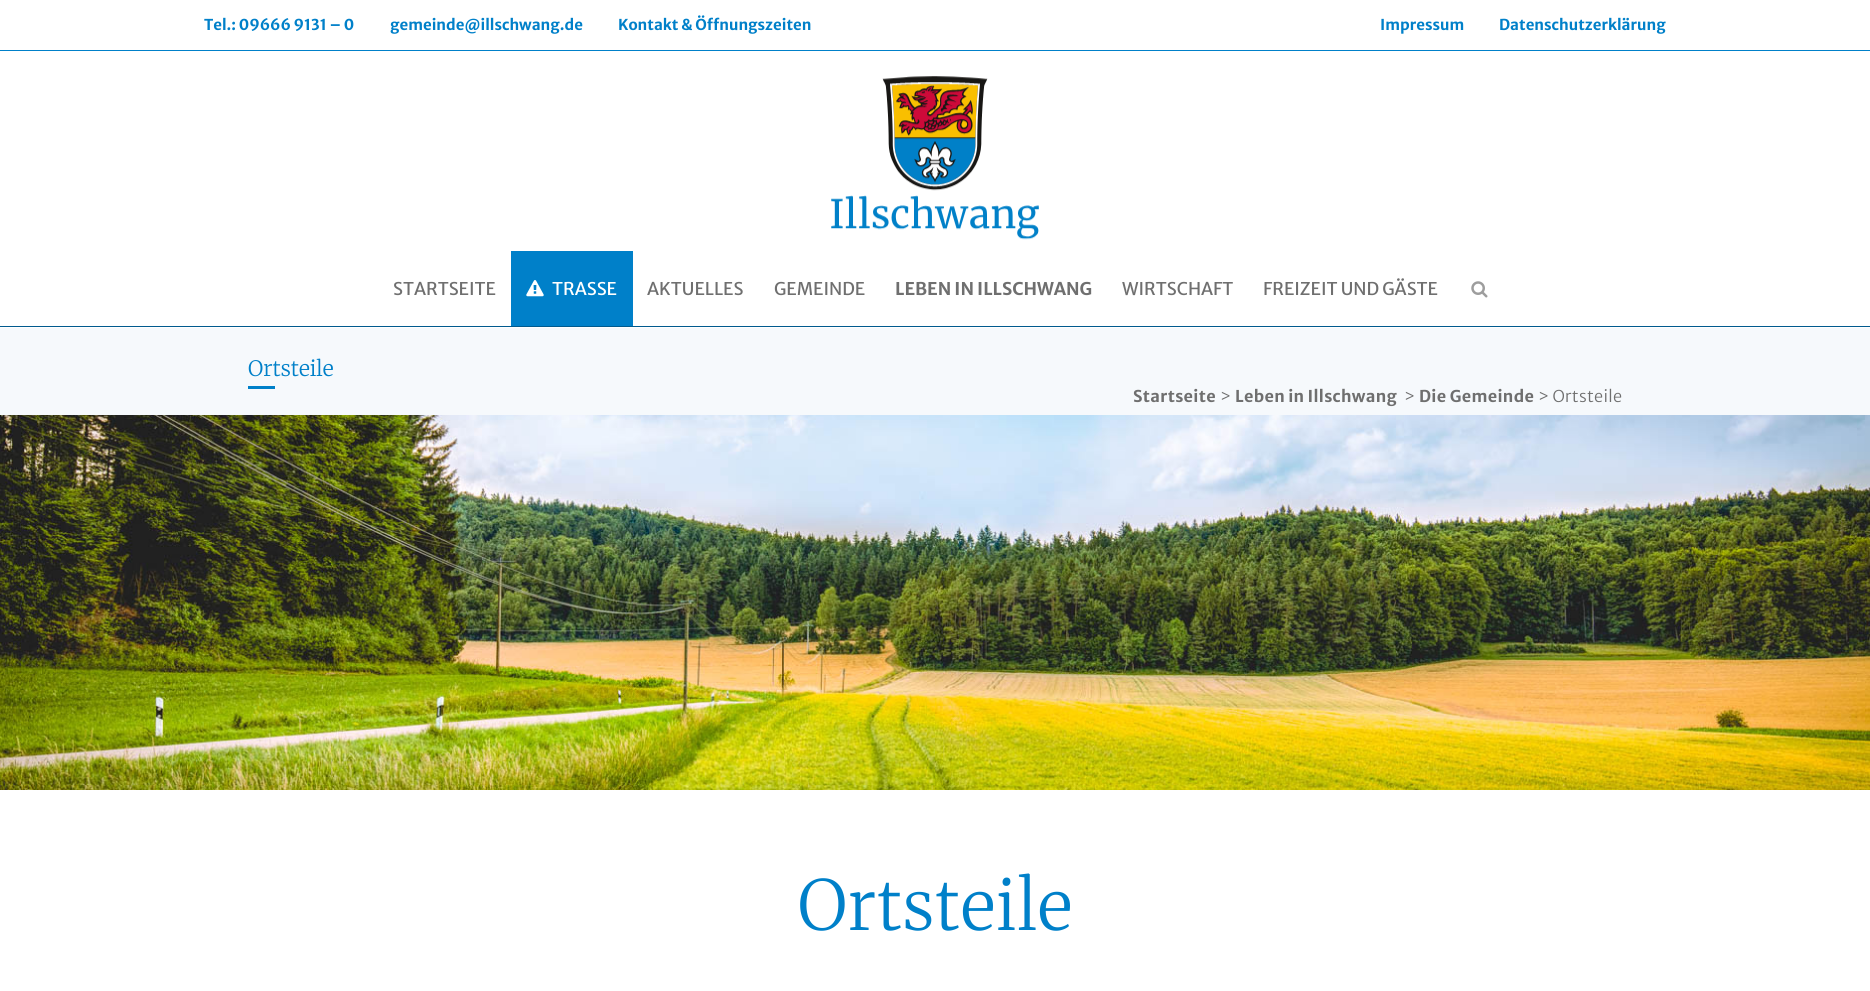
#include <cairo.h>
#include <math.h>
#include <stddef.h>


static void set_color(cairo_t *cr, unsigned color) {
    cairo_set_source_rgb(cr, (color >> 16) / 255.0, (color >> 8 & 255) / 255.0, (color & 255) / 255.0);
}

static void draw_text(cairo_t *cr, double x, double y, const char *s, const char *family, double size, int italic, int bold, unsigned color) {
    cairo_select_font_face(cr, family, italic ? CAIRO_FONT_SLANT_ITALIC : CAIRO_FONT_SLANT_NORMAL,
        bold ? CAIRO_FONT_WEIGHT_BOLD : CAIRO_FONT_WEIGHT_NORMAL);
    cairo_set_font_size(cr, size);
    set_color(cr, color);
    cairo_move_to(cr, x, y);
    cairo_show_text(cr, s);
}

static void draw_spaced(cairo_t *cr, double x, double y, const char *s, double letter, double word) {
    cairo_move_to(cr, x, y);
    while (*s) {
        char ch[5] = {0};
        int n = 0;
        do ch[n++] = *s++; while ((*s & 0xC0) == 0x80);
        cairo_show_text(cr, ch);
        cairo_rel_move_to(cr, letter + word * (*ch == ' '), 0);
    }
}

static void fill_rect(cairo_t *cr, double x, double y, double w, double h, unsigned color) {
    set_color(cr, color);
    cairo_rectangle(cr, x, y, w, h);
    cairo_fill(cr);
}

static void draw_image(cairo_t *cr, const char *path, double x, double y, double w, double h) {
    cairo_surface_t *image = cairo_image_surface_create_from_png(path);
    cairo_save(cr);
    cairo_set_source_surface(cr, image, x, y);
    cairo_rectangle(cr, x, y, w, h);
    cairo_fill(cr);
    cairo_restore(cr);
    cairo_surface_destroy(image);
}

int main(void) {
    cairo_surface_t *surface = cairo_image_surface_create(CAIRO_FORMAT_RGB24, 1870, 991);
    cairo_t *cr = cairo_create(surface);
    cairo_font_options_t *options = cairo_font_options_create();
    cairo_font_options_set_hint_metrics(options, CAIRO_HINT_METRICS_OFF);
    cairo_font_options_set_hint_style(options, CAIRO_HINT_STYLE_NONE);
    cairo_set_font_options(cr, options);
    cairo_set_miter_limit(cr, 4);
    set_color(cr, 0xFFFFFF);
    cairo_paint(cr);
    fill_rect(cr, 0, 50, 1870, 1, 0x0080C9);
    draw_text(cr, 204, 30, "Tel.: 09666 9131 – 0", "Merriweather Sans", 15, 0, 1, 0x0080C9);
    draw_text(cr, 390, 30, "gemeinde@illschwang.de", "Merriweather Sans", 15, 0, 1, 0x0080C9);
    draw_text(cr, 618, 30, "Kontakt & Öffnungszeiten", "Merriweather Sans", 15, 0, 1, 0x0080C9);
    draw_text(cr, 1380, 30, "Impressum", "Merriweather Sans", 15, 0, 1, 0x0080C9);
    draw_text(cr, 1499, 30, "Datenschutzerklärung", "Merriweather Sans", 15, 0, 1, 0x0080C9);
    fill_rect(cr, 0, 326, 1870, 1, 0x005A8E);
    draw_image(cr, "assets/img1.png", 831, 76, 208, 164);
    draw_text(cr, 393, 295, "STARTSEITE", "Merriweather Sans", 17.5, 0, 0, 0x6F6F6F);
    fill_rect(cr, 511, 251, 122, 75, 0x0080C9);
    draw_image(cr, "assets/img2.png", 526, 280, 18, 17);
    draw_text(cr, 552, 295, "TRASSE", "Merriweather Sans", 17.5, 0, 0, 0xFFFFFF);
    draw_text(cr, 647, 295, "AKTUELLES", "Merriweather Sans", 17.5, 0, 0, 0x6F6F6F);
    draw_text(cr, 774, 295, "GEMEINDE", "Merriweather Sans", 17.5, 0, 0, 0x6F6F6F);
    draw_text(cr, 895, 295, "LEBEN IN ILLSCHWANG", "Merriweather Sans", 17.5, 0, 1, 0x6F6F6F);
    draw_text(cr, 1122, 295, "WIRTSCHAFT", "Merriweather Sans", 17.5, 0, 0, 0x6F6F6F);
    draw_text(cr, 1263, 295, "FREIZEIT UND GÄSTE", "Merriweather Sans", 17.5, 0, 0, 0x6F6F6F);
    draw_image(cr, "assets/img3.png", 1471, 281, 17, 17);
    fill_rect(cr, 0, 328, 1870, 87, 0xF6F9FC);
    draw_text(cr, 248, 376, "Ortsteile", "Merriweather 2 Light", 21.25, 0, 0, 0x0080C9);
    fill_rect(cr, 248, 386, 27, 3, 0x0080C9);
    cairo_select_font_face(cr, "Merriweather Sans", CAIRO_FONT_SLANT_NORMAL, CAIRO_FONT_WEIGHT_BOLD);
    cairo_set_font_size(cr, 16.25);
    set_color(cr, 0x6F6F6F);
    draw_spaced(cr, 1133, 402, "Startseite", 0.3, 0);
    cairo_select_font_face(cr, "Merriweather Sans Light", CAIRO_FONT_SLANT_NORMAL, CAIRO_FONT_WEIGHT_NORMAL);
    draw_spaced(cr, 1220, 402, ">", 0.3, 0);
    cairo_select_font_face(cr, "Merriweather Sans", CAIRO_FONT_SLANT_NORMAL, CAIRO_FONT_WEIGHT_BOLD);
    draw_spaced(cr, 1235, 402, "Leben in Illschwang", 0.3, 0);
    cairo_select_font_face(cr, "Merriweather Sans Light", CAIRO_FONT_SLANT_NORMAL, CAIRO_FONT_WEIGHT_NORMAL);
    draw_spaced(cr, 1404, 402, ">", 0.3, 0);
    cairo_select_font_face(cr, "Merriweather Sans", CAIRO_FONT_SLANT_NORMAL, CAIRO_FONT_WEIGHT_BOLD);
    draw_spaced(cr, 1419, 402, "Die Gemeinde", 0.3, 0);
    cairo_select_font_face(cr, "Merriweather Sans Light", CAIRO_FONT_SLANT_NORMAL, CAIRO_FONT_WEIGHT_NORMAL);
    draw_spaced(cr, 1538, 402, "> Ortsteile", 0.3, 0);
    draw_image(cr, "assets/img4.png", 0, 415, 1870, 375);
    cairo_select_font_face(cr, "Merriweather Light", CAIRO_FONT_SLANT_NORMAL, CAIRO_FONT_WEIGHT_NORMAL);
    cairo_set_font_size(cr, 69);
    set_color(cr, 0x0080C9);
    draw_spaced(cr, 798, 930, "Ortsteile", 1.4, 0);
    cairo_surface_write_to_png(surface, "output.png");
    cairo_font_options_destroy(options);
    cairo_destroy(cr);
    cairo_surface_destroy(surface);
    return 0;
}
